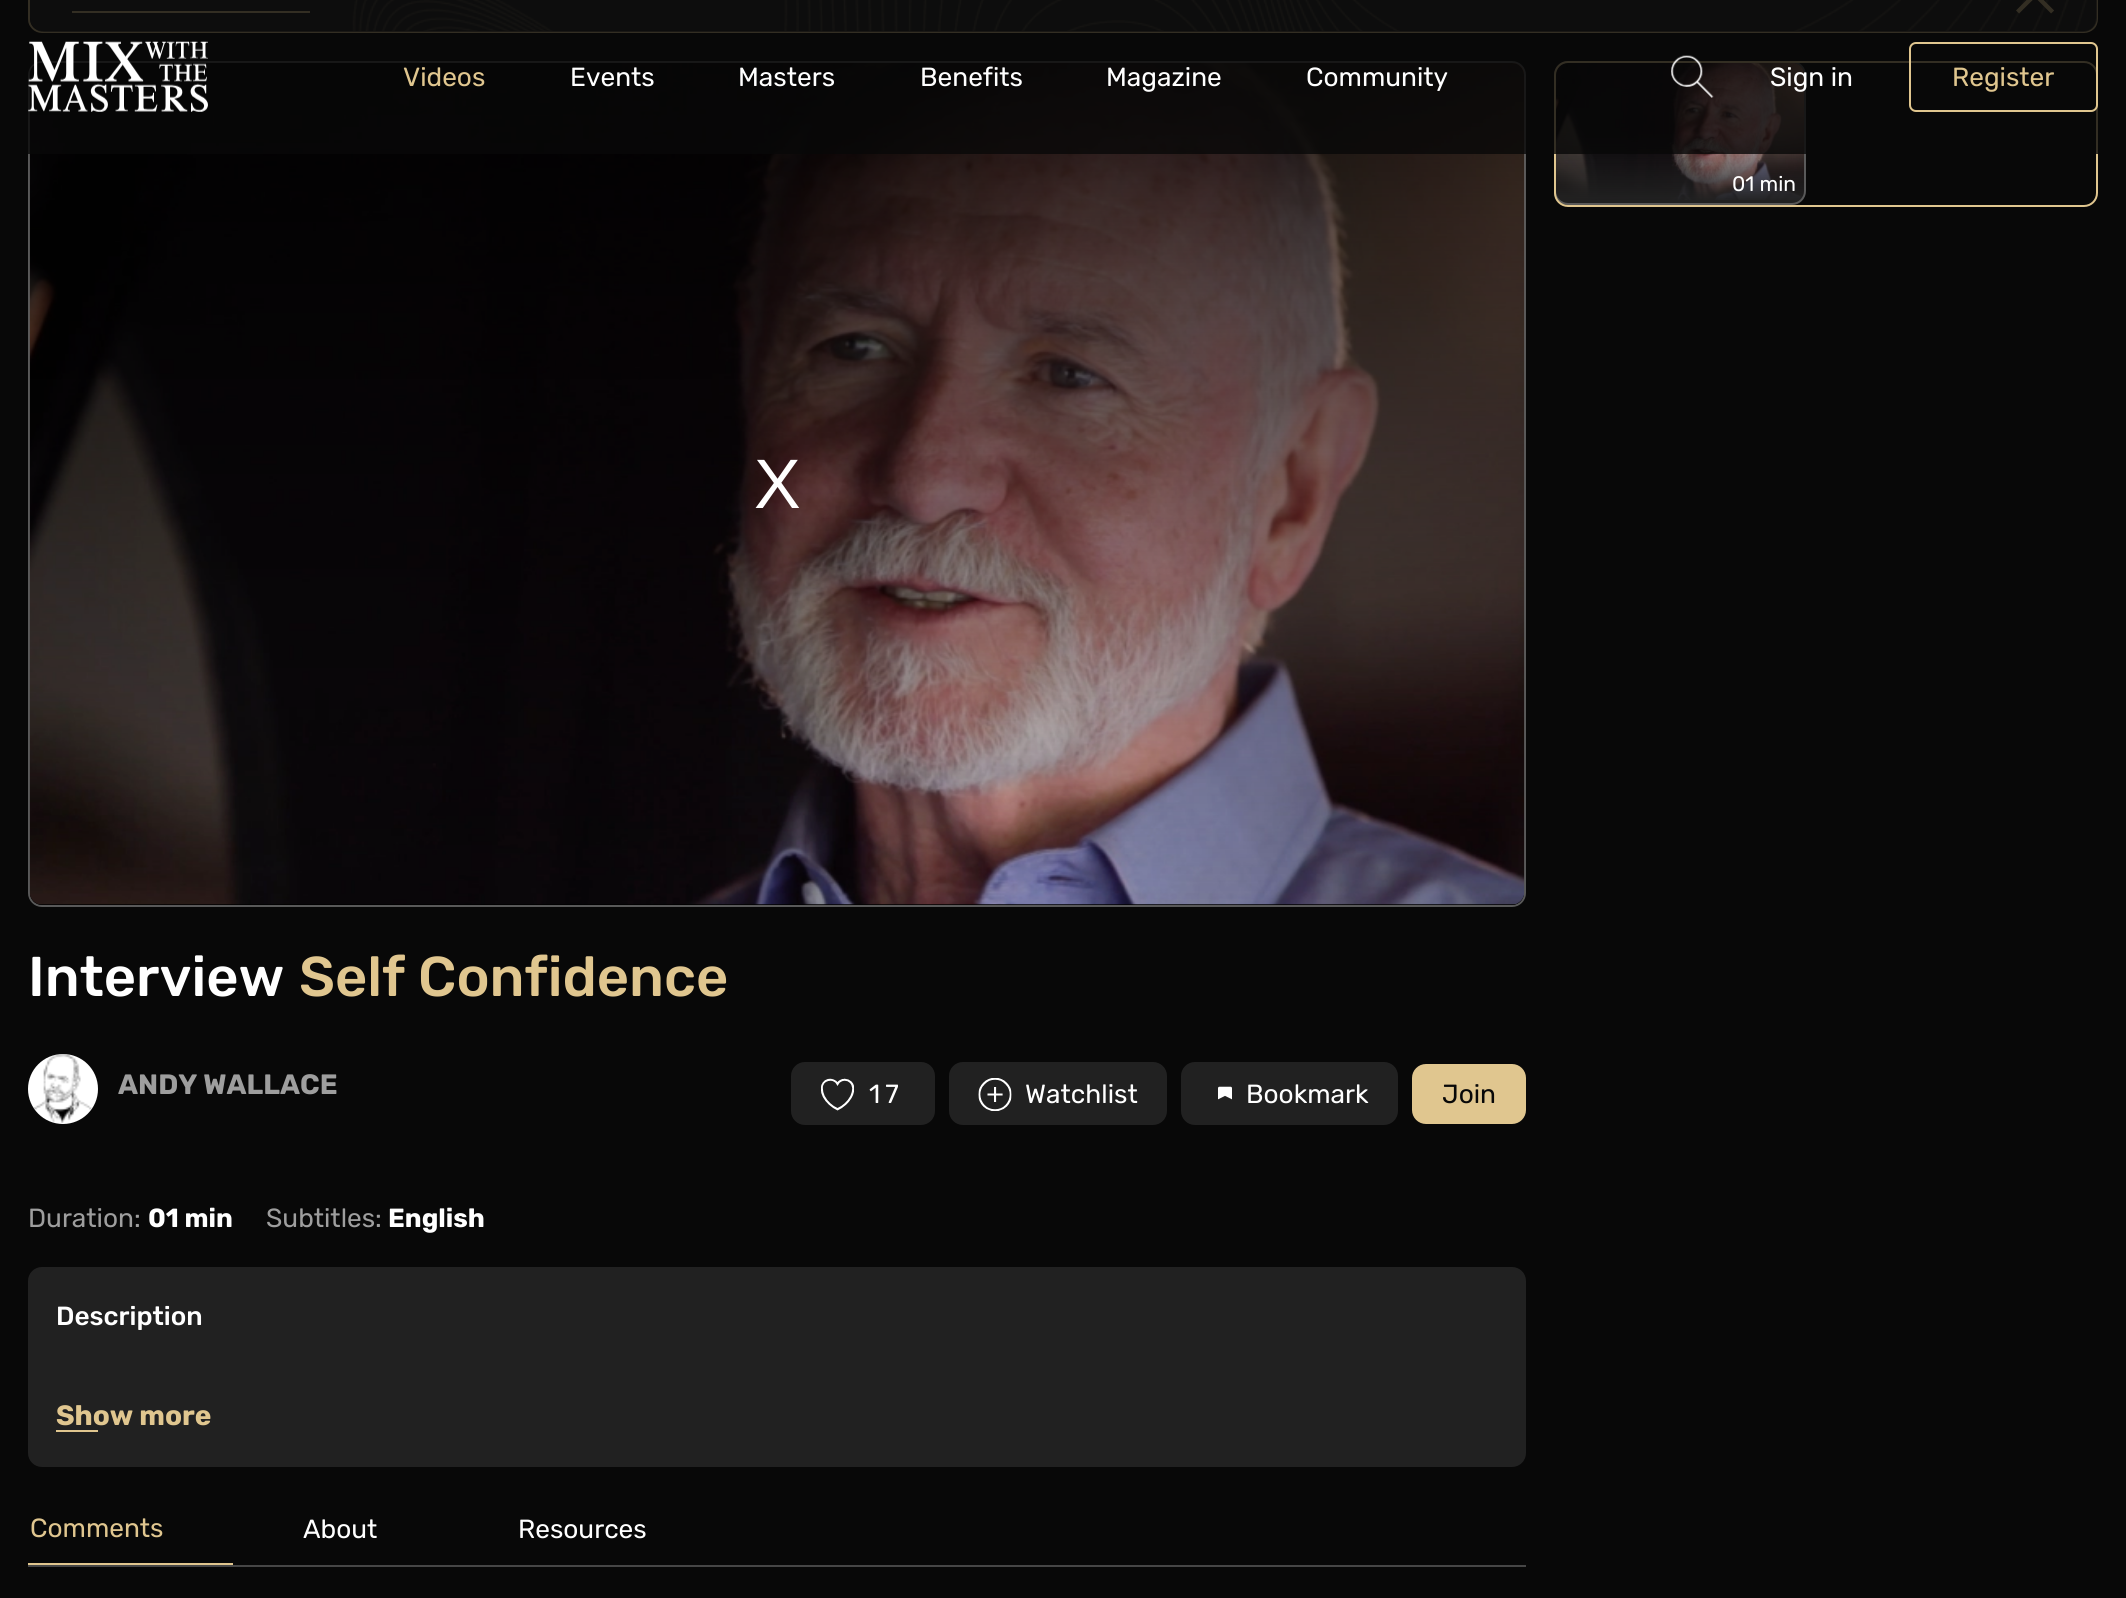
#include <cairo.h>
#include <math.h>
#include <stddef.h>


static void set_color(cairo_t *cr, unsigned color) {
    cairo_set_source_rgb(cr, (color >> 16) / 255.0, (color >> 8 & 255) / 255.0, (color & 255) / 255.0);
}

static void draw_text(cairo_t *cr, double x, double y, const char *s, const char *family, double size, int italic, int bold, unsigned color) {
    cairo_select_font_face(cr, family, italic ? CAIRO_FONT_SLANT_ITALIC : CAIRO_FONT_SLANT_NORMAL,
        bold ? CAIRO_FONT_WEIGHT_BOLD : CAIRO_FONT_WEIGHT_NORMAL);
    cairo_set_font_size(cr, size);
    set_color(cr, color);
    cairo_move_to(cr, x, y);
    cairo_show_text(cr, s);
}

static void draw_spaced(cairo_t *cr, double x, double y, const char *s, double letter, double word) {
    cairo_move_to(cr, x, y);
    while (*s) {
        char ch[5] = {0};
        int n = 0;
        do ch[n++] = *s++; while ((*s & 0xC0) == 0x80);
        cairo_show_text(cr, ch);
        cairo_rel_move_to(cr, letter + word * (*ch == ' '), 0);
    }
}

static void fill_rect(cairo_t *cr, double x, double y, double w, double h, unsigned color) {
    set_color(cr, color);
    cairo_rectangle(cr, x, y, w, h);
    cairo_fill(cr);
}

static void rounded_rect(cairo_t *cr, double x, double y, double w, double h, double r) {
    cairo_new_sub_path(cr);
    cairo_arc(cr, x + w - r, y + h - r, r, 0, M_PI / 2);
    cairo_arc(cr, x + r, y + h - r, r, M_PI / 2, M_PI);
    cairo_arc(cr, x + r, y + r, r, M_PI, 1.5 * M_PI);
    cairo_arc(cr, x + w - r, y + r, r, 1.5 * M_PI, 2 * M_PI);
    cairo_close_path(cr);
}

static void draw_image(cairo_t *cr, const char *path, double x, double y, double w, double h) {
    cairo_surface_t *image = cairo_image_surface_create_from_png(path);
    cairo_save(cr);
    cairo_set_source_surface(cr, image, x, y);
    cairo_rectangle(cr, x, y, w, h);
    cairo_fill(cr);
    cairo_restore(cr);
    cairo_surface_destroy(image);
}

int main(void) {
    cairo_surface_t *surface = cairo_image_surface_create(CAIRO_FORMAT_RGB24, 2126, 1598);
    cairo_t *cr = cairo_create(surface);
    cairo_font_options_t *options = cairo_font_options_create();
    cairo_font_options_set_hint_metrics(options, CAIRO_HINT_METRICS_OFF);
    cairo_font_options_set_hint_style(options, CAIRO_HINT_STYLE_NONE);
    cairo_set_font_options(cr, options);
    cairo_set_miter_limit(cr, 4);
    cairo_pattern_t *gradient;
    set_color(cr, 0x080808);
    cairo_paint(cr);
    draw_image(cr, "assets/img3.png", 28, 0, 2070, 33);
    rounded_rect(cr, 29, -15, 2068, 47, 13);
    set_color(cr, 0xE0C68F);
    cairo_stroke(cr);
    cairo_set_source_rgba(cr, 0.188, 0.188, 0.188, 0.7);
    rounded_rect(cr, 30, -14, 2067, 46, 14);
    cairo_fill(cr);
    fill_rect(cr, 72, 11, 238, 2, 0xE0C68F);
    draw_image(cr, "assets/img4.png", 2016, 0, 38, 14);
    set_color(cr, 0x212121);
    rounded_rect(cr, 1554, 61, 252, 144, 14);
    cairo_fill(cr);
    rounded_rect(cr, 1555, 62, 250, 142, 13);
    cairo_set_source_rgba(cr, 1, 1, 1, 0.25);
    cairo_stroke(cr);
    draw_image(cr, "assets/img5.png", 1556, 63, 248, 137);
    rounded_rect(cr, 1555, 62, 542, 144, 13);
    set_color(cr, 0xE0C68F);
    cairo_stroke(cr);
    set_color(cr, 0x212121);
    rounded_rect(cr, 28, 61, 1498, 846, 14);
    cairo_fill(cr);
    rounded_rect(cr, 29, 62, 1496, 844, 13);
    cairo_set_source_rgba(cr, 1, 1, 1, 0.25);
    cairo_stroke(cr);
    set_color(cr, 0x000000);
    rounded_rect(cr, 30, 63, 1494, 842, 12);
    cairo_fill(cr);
    draw_image(cr, "assets/img6.png", 29, 62, 1496, 843);
    gradient = cairo_pattern_create_linear(777, 63, 777, 905);
    cairo_pattern_add_color_stop_rgba(gradient, 0, 0, 0, 0, 0.8);
    cairo_pattern_add_color_stop_rgba(gradient, 1, 0, 0, 0, 0);
    cairo_set_source(cr, gradient);
    cairo_pattern_destroy(gradient);
    rounded_rect(cr, 30, 63, 1494, 842, 12);
    cairo_fill(cr);
    cairo_set_source_rgba(cr, 0.031, 0.031, 0.031, 0.8);
    cairo_rectangle(cr, 28, 0, 2070, 154);
    cairo_fill(cr);
    draw_image(cr, "assets/img1.png", 28, 41, 180, 71);
    draw_text(cr, 403, 86, "Videos", "Rubik", 26.25, 0, 0, 0xE0C68F);
    draw_text(cr, 570, 86, "Events", "Rubik", 26.25, 0, 0, 0xFFFFFF);
    draw_text(cr, 738, 86, "Masters", "Rubik", 26.25, 0, 0, 0xFFFFFF);
    draw_text(cr, 920, 86, "Benefits", "Rubik", 26.25, 0, 0, 0xFFFFFF);
    draw_text(cr, 1106, 86, "Magazine", "Rubik", 26.25, 0, 0, 0xFFFFFF);
    draw_text(cr, 1306, 86, "Community", "Rubik", 26.25, 0, 0, 0xFFFFFF);
    draw_image(cr, "assets/img2.png", 1671, 55, 43, 43);
    draw_text(cr, 1770, 86, "Sign in", "Rubik", 26.25, 0, 0, 0xFFFFFF);
    rounded_rect(cr, 1910, 43, 187, 68, 6);
    set_color(cr, 0xE0C68F);
    cairo_stroke(cr);
    draw_text(cr, 1952, 86, "Register", "Rubik", 26.25, 0, 0, 0xE0C68F);
    draw_text(cr, 1732, 191, "01 min", "Rubik", 21, 0, 0, 0xFFFFFF);
    draw_text(cr, 754, 508, "X", "Liberation Sans", 70, 0, 0, 0xFFFFFF);
    draw_text(cr, 28, 996, "Interview", "Rubik Medium", 56, 0, 0, 0xFFFFFF);
    draw_text(cr, 299, 996, "Self Confidence", "Rubik Medium", 56, 0, 0, 0xE0C68F);
    set_color(cr, 0xFFFFFF);
    cairo_new_path(cr);
    cairo_arc(cr, 63, 1089, 35, 0, 2 * M_PI);
    cairo_fill(cr);
    draw_image(cr, "assets/img7.png", 33, 1054, 59, 69);
    draw_text(cr, 118, 1094, "ANDY WALLACE", "Rubik", 28, 0, 1, 0x9E9E9E);
    set_color(cr, 0x212121);
    rounded_rect(cr, 791, 1062, 144, 63, 14);
    cairo_fill(cr);
    draw_image(cr, "assets/img8.png", 821, 1078, 33, 33);
    cairo_select_font_face(cr, "Rubik", CAIRO_FONT_SLANT_NORMAL, CAIRO_FONT_WEIGHT_NORMAL);
    cairo_set_font_size(cr, 26.25);
    set_color(cr, 0xFFFFFF);
    draw_spaced(cr, 869, 1103, "17", 5, 0);
    set_color(cr, 0x212121);
    rounded_rect(cr, 949, 1062, 218, 63, 14);
    cairo_fill(cr);
    draw_image(cr, "assets/img9.png", 978, 1078, 34, 33);
    draw_text(cr, 1025, 1103, "Watchlist", "Rubik", 26.25, 0, 0, 0xFFFFFF);
    set_color(cr, 0x212121);
    rounded_rect(cr, 1181, 1062, 217, 63, 14);
    cairo_fill(cr);
    draw_image(cr, "assets/img10.png", 1218, 1086, 14, 14);
    draw_text(cr, 1246, 1103, "Bookmark", "Rubik", 26.25, 0, 0, 0xFFFFFF);
    set_color(cr, 0xE0C68F);
    rounded_rect(cr, 1413, 1065, 112, 58, 13);
    cairo_fill_preserve(cr);
    cairo_stroke(cr);
    draw_text(cr, 1442, 1103, "Join", "Rubik", 26.25, 0, 0, 0x080808);
    draw_text(cr, 28, 1227, "Duration:", "Rubik", 26.25, 0, 0, 0x9E9E9E);
    draw_text(cr, 148, 1227, "01 min", "Rubik", 26.25, 0, 1, 0xFFFFFF);
    draw_text(cr, 266, 1227, "Subtitles:", "Rubik", 26.25, 0, 0, 0x9E9E9E);
    draw_text(cr, 388, 1227, "English", "Rubik", 26.25, 0, 1, 0xFFFFFF);
    set_color(cr, 0x212121);
    rounded_rect(cr, 28, 1267, 1498, 200, 14);
    cairo_fill(cr);
    draw_text(cr, 56, 1325, "Description", "Rubik Medium", 26.25, 0, 0, 0xFFFFFF);
    draw_text(cr, 56, 1425, "Show more", "Rubik", 28, 0, 1, 0xE0C68F);
    fill_rect(cr, 56, 1430, 42, 2, 0xE0C68F);
    fill_rect(cr, 28, 1563, 205, 2, 0xE0C68F);
    draw_text(cr, 30, 1537, "Comments", "Rubik", 26.25, 0, 0, 0xE0C68F);
    draw_text(cr, 303, 1538, "About", "Rubik", 26.25, 0, 0, 0xFFFFFF);
    draw_text(cr, 518, 1538, "Resources", "Rubik", 26.25, 0, 0, 0xFFFFFF);
    fill_rect(cr, 28, 1565, 1498, 2, 0x464646);
    cairo_surface_write_to_png(surface, "output.png");
    cairo_font_options_destroy(options);
    cairo_destroy(cr);
    cairo_surface_destroy(surface);
    return 0;
}
